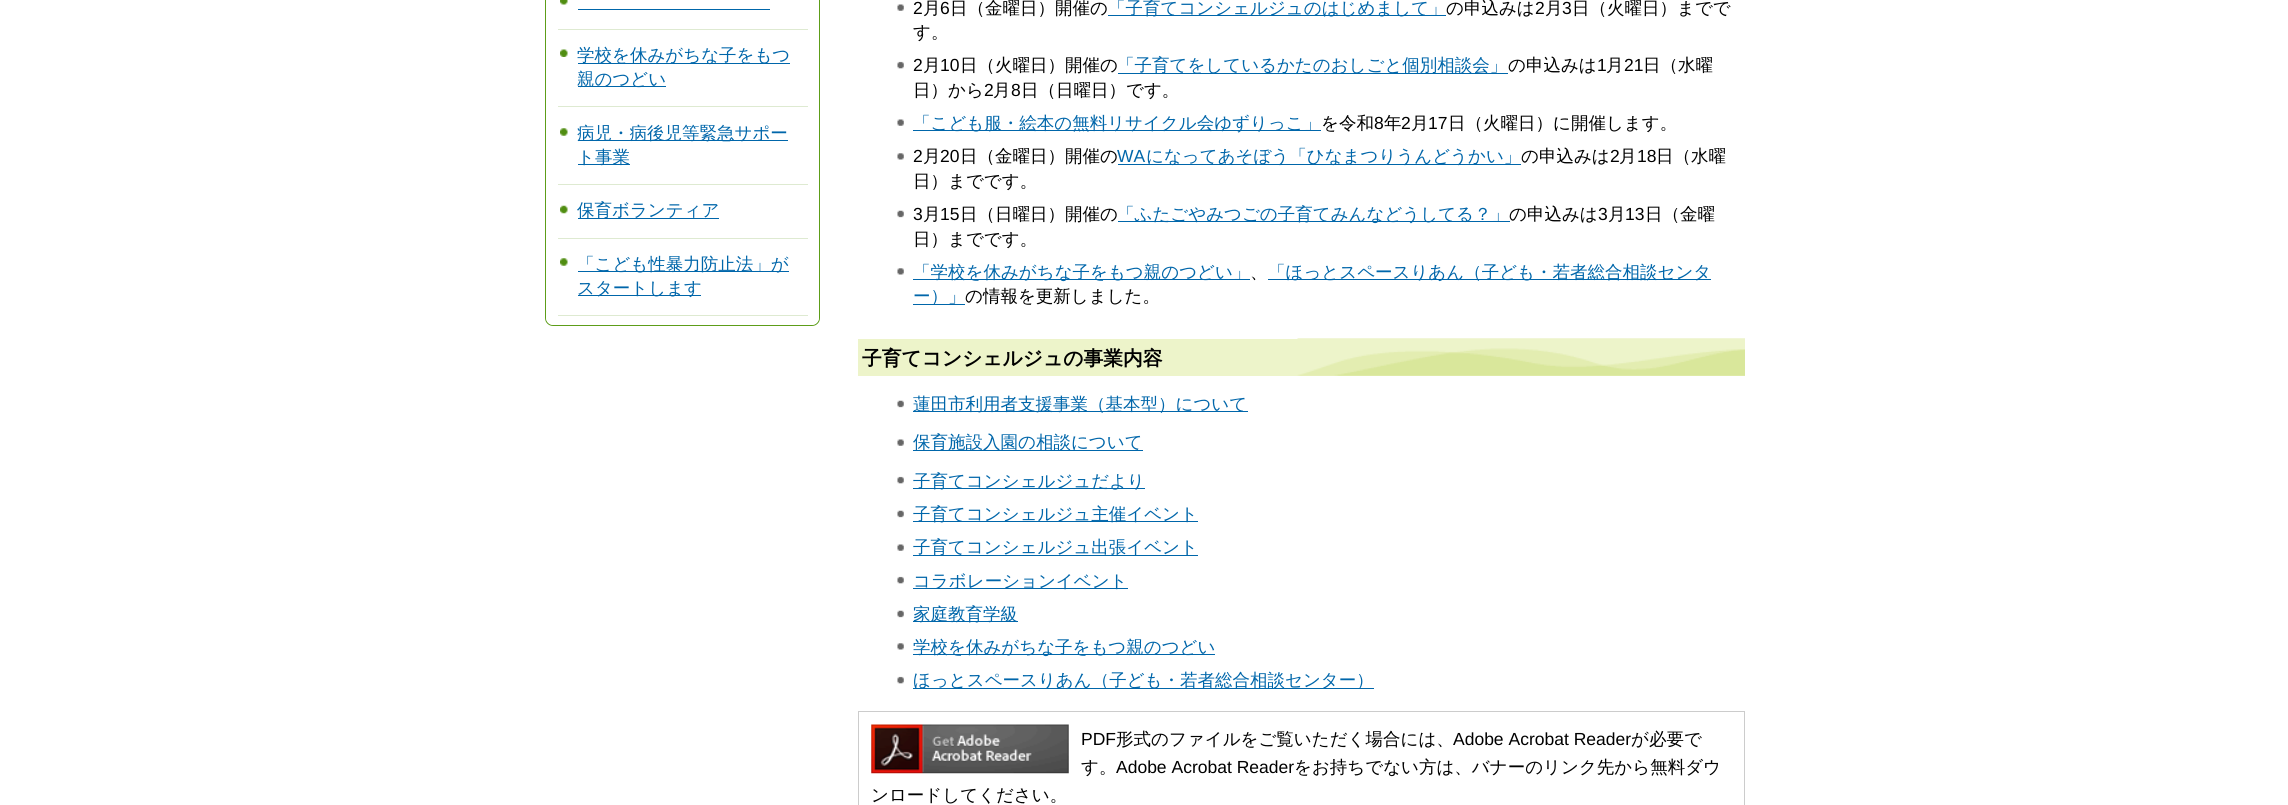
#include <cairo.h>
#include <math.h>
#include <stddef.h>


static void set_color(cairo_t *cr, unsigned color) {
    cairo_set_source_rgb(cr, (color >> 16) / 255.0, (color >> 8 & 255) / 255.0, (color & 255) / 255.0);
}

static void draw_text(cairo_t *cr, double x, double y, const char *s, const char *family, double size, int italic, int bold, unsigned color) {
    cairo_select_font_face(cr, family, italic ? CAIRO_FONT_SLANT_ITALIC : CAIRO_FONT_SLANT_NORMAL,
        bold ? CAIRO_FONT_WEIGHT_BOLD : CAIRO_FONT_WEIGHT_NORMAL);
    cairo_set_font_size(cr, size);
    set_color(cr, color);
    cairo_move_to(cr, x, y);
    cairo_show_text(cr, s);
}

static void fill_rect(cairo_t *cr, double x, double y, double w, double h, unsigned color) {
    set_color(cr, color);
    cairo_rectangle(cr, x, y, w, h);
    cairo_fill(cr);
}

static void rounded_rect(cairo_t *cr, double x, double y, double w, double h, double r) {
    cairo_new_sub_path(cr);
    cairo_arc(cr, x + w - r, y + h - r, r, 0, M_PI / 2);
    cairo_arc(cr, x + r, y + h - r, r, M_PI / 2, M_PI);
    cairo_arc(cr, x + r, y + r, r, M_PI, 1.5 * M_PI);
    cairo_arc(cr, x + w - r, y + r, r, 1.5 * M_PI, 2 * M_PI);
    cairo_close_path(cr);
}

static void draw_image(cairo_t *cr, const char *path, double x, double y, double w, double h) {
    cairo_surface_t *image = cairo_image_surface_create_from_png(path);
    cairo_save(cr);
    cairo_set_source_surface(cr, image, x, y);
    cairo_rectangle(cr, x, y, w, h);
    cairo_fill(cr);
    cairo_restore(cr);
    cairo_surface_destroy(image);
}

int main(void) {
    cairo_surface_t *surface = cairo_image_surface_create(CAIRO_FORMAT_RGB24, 2288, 805);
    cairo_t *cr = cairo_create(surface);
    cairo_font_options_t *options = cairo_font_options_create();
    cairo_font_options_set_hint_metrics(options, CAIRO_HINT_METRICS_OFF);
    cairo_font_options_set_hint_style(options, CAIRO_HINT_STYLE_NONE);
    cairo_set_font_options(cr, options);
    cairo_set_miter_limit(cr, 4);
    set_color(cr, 0xFFFFFF);
    cairo_paint(cr);
    rounded_rect(cr, 545.5, -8.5, 274, 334, 7.5);
    set_color(cr, 0x5D9D19);
    cairo_set_line_width(cr, 1);
    cairo_stroke(cr);
    set_color(cr, 0xFFFFFF);
    cairo_new_path(cr);
    cairo_move_to(cr, 546, -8);
    cairo_line_to(cr, 819, -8);
    cairo_line_to(cr, 819, 317);
    cairo_curve_to(cr, 819, 321.5, 815.5, 325, 811, 325);
    cairo_line_to(cr, 554, 325);
    cairo_curve_to(cr, 549.5, 325, 546, 321.5, 546, 317);
    cairo_close_path(cr);
    cairo_fill(cr);
    draw_image(cr, "assets/img1.png", 560, 0, 8, 5);
    fill_rect(cr, 558, 29, 250, 1, 0xDEEAD1);
    fill_rect(cr, 578, 9, 192, 1, 0x0066AA);
    draw_image(cr, "assets/img2.png", 560, 49, 8, 8);
    fill_rect(cr, 558, 106, 250, 1, 0xDEEAD1);
    fill_rect(cr, 578, 63, 212, 1, 0x0066AA);
    draw_text(cr, 577, 61, "学校を休みがちな子をもつ", "WenQuanYi Zen Hei Medium", 17.5, 0, 0, 0x0066AA);
    fill_rect(cr, 578, 86, 88, 1, 0x0066AA);
    draw_text(cr, 577, 85, "親のつどい", "WenQuanYi Zen Hei Medium", 17.5, 0, 0, 0x0066AA);
    draw_image(cr, "assets/img3.png", 560, 128, 8, 8);
    fill_rect(cr, 558, 184, 250, 1, 0xDEEAD1);
    fill_rect(cr, 578, 140, 210, 1, 0x0066AA);
    draw_text(cr, 577, 139, "病児・病後児等緊急サポー", "WenQuanYi Zen Hei Medium", 17.5, 0, 0, 0x0066AA);
    fill_rect(cr, 578, 164, 52, 1, 0x0066AA);
    draw_text(cr, 577, 163, "ト事業", "WenQuanYi Zen Hei Medium", 17.5, 0, 0, 0x0066AA);
    draw_image(cr, "assets/img4.png", 560, 205, 8, 9);
    fill_rect(cr, 558, 238, 250, 1, 0xDEEAD1);
    fill_rect(cr, 578, 218, 141, 1, 0x0066AA);
    draw_text(cr, 577, 216, "保育ボランティア", "WenQuanYi Zen Hei Medium", 17.5, 0, 0, 0x0066AA);
    draw_image(cr, "assets/img3.png", 560, 258, 8, 8);
    fill_rect(cr, 558, 315, 250, 1, 0xDEEAD1);
    fill_rect(cr, 578, 271, 211, 1, 0x0066AA);
    draw_text(cr, 577, 270, "「こども性暴力防止法」が", "WenQuanYi Zen Hei Medium", 17.5, 0, 0, 0x0066AA);
    fill_rect(cr, 578, 295, 123, 1, 0x0066AA);
    draw_text(cr, 577, 294, "スタートします", "WenQuanYi Zen Hei Medium", 17.5, 0, 0, 0x0066AA);
    draw_image(cr, "assets/img5.png", 897, 4, 7, 7);
    draw_text(cr, 913, 14, "2", "Liberation Sans", 17.5, 0, 0, 0x000000);
    draw_text(cr, 923, 14, "月", "WenQuanYi Zen Hei Medium", 17.5, 0, 0, 0x000000);
    draw_text(cr, 940, 14, "6", "Liberation Sans", 17.5, 0, 0, 0x000000);
    draw_text(cr, 950, 14, "日（金曜日）開催の", "WenQuanYi Zen Hei Medium", 17.5, 0, 0, 0x000000);
    fill_rect(cr, 1108, 15, 338, 1, 0x0066AA);
    draw_text(cr, 1108, 14, "「子育てコンシェルジュのはじめまして」", "WenQuanYi Zen Hei Medium", 17.5, 0, 0, 0x0066AA);
    draw_text(cr, 1446, 14, "の申込みは", "WenQuanYi Zen Hei Medium", 17.5, 0, 0, 0x000000);
    draw_text(cr, 1535, 14, "2", "Liberation Sans", 17.5, 0, 0, 0x000000);
    draw_text(cr, 1545, 14, "月", "WenQuanYi Zen Hei Medium", 17.5, 0, 0, 0x000000);
    draw_text(cr, 1562, 14, "3", "Liberation Sans", 17.5, 0, 0, 0x000000);
    draw_text(cr, 1572, 14, "日（火曜日）までで", "WenQuanYi Zen Hei Medium", 17.5, 0, 0, 0x000000);
    draw_text(cr, 913, 38, "す。", "WenQuanYi Zen Hei Medium", 17.5, 0, 0, 0x000000);
    draw_image(cr, "assets/img6.png", 897, 61, 7, 8);
    draw_text(cr, 913, 71, "2", "Liberation Sans", 17.5, 0, 0, 0x000000);
    draw_text(cr, 923, 71, "月", "WenQuanYi Zen Hei Medium", 17.5, 0, 0, 0x000000);
    draw_text(cr, 940, 71, "10", "Liberation Sans", 17.5, 0, 0, 0x000000);
    draw_text(cr, 960, 71, "日（火曜日）開催の", "WenQuanYi Zen Hei Medium", 17.5, 0, 0, 0x000000);
    fill_rect(cr, 1118, 73, 390, 1, 0x0066AA);
    draw_text(cr, 1117, 71, "「子育てをしているかたのおしごと個別相談会」", "WenQuanYi Zen Hei Medium", 17.5, 0, 0, 0x0066AA);
    draw_text(cr, 1508, 71, "の申込みは", "WenQuanYi Zen Hei Medium", 17.5, 0, 0, 0x000000);
    draw_text(cr, 1597, 71, "1", "Liberation Sans", 17.5, 0, 0, 0x000000);
    draw_text(cr, 1606, 71, "月", "WenQuanYi Zen Hei Medium", 17.5, 0, 0, 0x000000);
    draw_text(cr, 1624, 71, "21", "Liberation Sans", 17.5, 0, 0, 0x000000);
    draw_text(cr, 1643, 71, "日（水曜", "WenQuanYi Zen Hei Medium", 17.5, 0, 0, 0x000000);
    draw_text(cr, 913, 96, "日）から", "WenQuanYi Zen Hei Medium", 17.5, 0, 0, 0x000000);
    draw_text(cr, 984, 96, "2", "Liberation Sans", 17.5, 0, 0, 0x000000);
    draw_text(cr, 993, 96, "月", "WenQuanYi Zen Hei Medium", 17.5, 0, 0, 0x000000);
    draw_text(cr, 1011, 96, "8", "Liberation Sans", 17.5, 0, 0, 0x000000);
    draw_text(cr, 1021, 96, "日（日曜日）です。", "WenQuanYi Zen Hei Medium", 17.5, 0, 0, 0x000000);
    draw_image(cr, "assets/img5.png", 897, 119, 7, 7);
    fill_rect(cr, 913, 130, 408, 1, 0x0066AA);
    draw_text(cr, 913, 129, "「こども服・絵本の無料リサイクル会ゆずりっこ」", "WenQuanYi Zen Hei Medium", 17.5, 0, 0, 0x0066AA);
    draw_text(cr, 1321, 129, "を令和", "WenQuanYi Zen Hei Medium", 17.5, 0, 0, 0x000000);
    draw_text(cr, 1374, 129, "8", "Liberation Sans", 17.5, 0, 0, 0x000000);
    draw_text(cr, 1384, 129, "年", "WenQuanYi Zen Hei Medium", 17.5, 0, 0, 0x000000);
    draw_text(cr, 1401, 129, "2", "Liberation Sans", 17.5, 0, 0, 0x000000);
    draw_text(cr, 1411, 129, "月", "WenQuanYi Zen Hei Medium", 17.5, 0, 0, 0x000000);
    draw_text(cr, 1428, 129, "17", "Liberation Sans", 17.5, 0, 0, 0x000000);
    draw_text(cr, 1448, 129, "日（火曜日）に開催します。", "WenQuanYi Zen Hei Medium", 17.5, 0, 0, 0x000000);
    draw_image(cr, "assets/img7.png", 897, 153, 7, 7);
    draw_text(cr, 913, 162, "2", "Liberation Sans", 17.5, 0, 0, 0x000000);
    draw_text(cr, 923, 162, "月", "WenQuanYi Zen Hei Medium", 17.5, 0, 0, 0x000000);
    draw_text(cr, 940, 162, "20", "Liberation Sans", 17.5, 0, 0, 0x000000);
    draw_text(cr, 960, 162, "日（金曜日）開催の", "WenQuanYi Zen Hei Medium", 17.5, 0, 0, 0x000000);
    draw_text(cr, 1117, 162, "WA", "Liberation Sans", 17.5, 0, 0, 0x0066AA);
    fill_rect(cr, 1118, 164, 403, 1, 0x0066AA);
    draw_text(cr, 1146, 162, "になってあそぼう「ひなまつりうんどうかい」", "WenQuanYi Zen Hei Medium", 17.5, 0, 0, 0x0066AA);
    draw_text(cr, 1521, 162, "の申込みは", "WenQuanYi Zen Hei Medium", 17.5, 0, 0, 0x000000);
    draw_text(cr, 1610, 162, "2", "Liberation Sans", 17.5, 0, 0, 0x000000);
    draw_text(cr, 1619, 162, "月", "WenQuanYi Zen Hei Medium", 17.5, 0, 0, 0x000000);
    draw_text(cr, 1637, 162, "18", "Liberation Sans", 17.5, 0, 0, 0x000000);
    draw_text(cr, 1656, 162, "日（水曜", "WenQuanYi Zen Hei Medium", 17.5, 0, 0, 0x000000);
    draw_text(cr, 913, 187, "日）までです。", "WenQuanYi Zen Hei Medium", 17.5, 0, 0, 0x000000);
    draw_image(cr, "assets/img8.png", 897, 210, 7, 8);
    draw_text(cr, 913, 220, "3", "Liberation Sans", 17.5, 0, 0, 0x000000);
    draw_text(cr, 923, 220, "月", "WenQuanYi Zen Hei Medium", 17.5, 0, 0, 0x000000);
    draw_text(cr, 940, 220, "15", "Liberation Sans", 17.5, 0, 0, 0x000000);
    draw_text(cr, 960, 220, "日（日曜日）開催の", "WenQuanYi Zen Hei Medium", 17.5, 0, 0, 0x000000);
    fill_rect(cr, 1118, 221, 392, 1, 0x0066AA);
    draw_text(cr, 1117, 220, "「ふたごやみつごの子育てみんなどうしてる？」", "WenQuanYi Zen Hei Medium", 17.5, 0, 0, 0x0066AA);
    draw_text(cr, 1509, 220, "の申込みは", "WenQuanYi Zen Hei Medium", 17.5, 0, 0, 0x000000);
    draw_text(cr, 1598, 220, "3", "Liberation Sans", 17.5, 0, 0, 0x000000);
    draw_text(cr, 1608, 220, "月", "WenQuanYi Zen Hei Medium", 17.5, 0, 0, 0x000000);
    draw_text(cr, 1625, 220, "13", "Liberation Sans", 17.5, 0, 0, 0x000000);
    draw_text(cr, 1645, 220, "日（金曜", "WenQuanYi Zen Hei Medium", 17.5, 0, 0, 0x000000);
    draw_text(cr, 913, 245, "日）までです。", "WenQuanYi Zen Hei Medium", 17.5, 0, 0, 0x000000);
    draw_image(cr, "assets/img7.png", 897, 268, 7, 7);
    fill_rect(cr, 913, 279, 337, 1, 0x0066AA);
    draw_text(cr, 913, 278, "「学校を休みがちな子をもつ親のつどい」", "WenQuanYi Zen Hei Medium", 17.5, 0, 0, 0x0066AA);
    draw_text(cr, 1250, 278, "、", "WenQuanYi Zen Hei Medium", 17.5, 0, 0, 0x000000);
    fill_rect(cr, 1268, 279, 443, 1, 0x0066AA);
    draw_text(cr, 1268, 278, "「ほっとスペースりあん（子ども・若者総合相談センタ", "WenQuanYi Zen Hei Medium", 17.5, 0, 0, 0x0066AA);
    fill_rect(cr, 913, 304, 52, 1, 0x0066AA);
    draw_text(cr, 913, 302, "ー）」", "WenQuanYi Zen Hei Medium", 17.5, 0, 0, 0x0066AA);
    draw_text(cr, 965, 302, "の情報を更新しました。", "WenQuanYi Zen Hei Medium", 17.5, 0, 0, 0x000000);
    fill_rect(cr, 858, 339, 887, 37, 0xEDF4CA);
    draw_image(cr, "assets/img9.png", 1297, 338, 448, 38);
    draw_text(cr, 862, 365, "子育てコンシェルジュの事業内容", "WenQuanYi Zen Hei", 19.75, 0, 1, 0x000000);
    draw_image(cr, "assets/img8.png", 897, 400, 7, 8);
    fill_rect(cr, 913, 411, 335, 1, 0x0066AA);
    draw_text(cr, 913, 410, "蓮田市利用者支援事業（基本型）について", "WenQuanYi Zen Hei Medium", 17.5, 0, 0, 0x0066AA);
    draw_image(cr, "assets/img5.png", 897, 439, 7, 7);
    fill_rect(cr, 913, 450, 230, 1, 0x0066AA);
    draw_text(cr, 913, 448, "保育施設入園の相談について", "WenQuanYi Zen Hei Medium", 17.5, 0, 0, 0x0066AA);
    draw_image(cr, "assets/img6.png", 897, 476, 7, 8);
    fill_rect(cr, 913, 488, 232, 1, 0x0066AA);
    draw_text(cr, 913, 487, "子育てコンシェルジュだより", "WenQuanYi Zen Hei Medium", 17.5, 0, 0, 0x0066AA);
    draw_image(cr, "assets/img8.png", 897, 510, 7, 8);
    fill_rect(cr, 913, 521, 285, 1, 0x0066AA);
    draw_text(cr, 913, 520, "子育てコンシェルジュ主催イベント", "WenQuanYi Zen Hei Medium", 17.5, 0, 0, 0x0066AA);
    draw_image(cr, "assets/img5.png", 897, 544, 7, 7);
    fill_rect(cr, 913, 555, 285, 1, 0x0066AA);
    draw_text(cr, 913, 553, "子育てコンシェルジュ出張イベント", "WenQuanYi Zen Hei Medium", 17.5, 0, 0, 0x0066AA);
    draw_image(cr, "assets/img6.png", 897, 576, 7, 8);
    fill_rect(cr, 913, 588, 215, 1, 0x0066AA);
    draw_text(cr, 913, 587, "コラボレーションイベント", "WenQuanYi Zen Hei Medium", 17.5, 0, 0, 0x0066AA);
    draw_image(cr, "assets/img8.png", 897, 610, 7, 8);
    fill_rect(cr, 913, 621, 105, 1, 0x0066AA);
    draw_text(cr, 913, 620, "家庭教育学級", "WenQuanYi Zen Hei Medium", 17.5, 0, 0, 0x0066AA);
    draw_image(cr, "assets/img7.png", 897, 643, 7, 7);
    fill_rect(cr, 913, 654, 302, 1, 0x0066AA);
    draw_text(cr, 913, 653, "学校を休みがちな子をもつ親のつどい", "WenQuanYi Zen Hei Medium", 17.5, 0, 0, 0x0066AA);
    draw_image(cr, "assets/img6.png", 897, 676, 7, 8);
    fill_rect(cr, 913, 688, 461, 1, 0x0066AA);
    draw_text(cr, 913, 686, "ほっとスペースりあん（子ども・若者総合相談センター）", "WenQuanYi Zen Hei Medium", 17.5, 0, 0, 0x0066AA);
    cairo_rectangle(cr, 858.5, 711.5, 886, 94);
    set_color(cr, 0xCCCCCC);
    cairo_stroke(cr);
    draw_image(cr, "assets/img10.png", 871, 724, 198, 50);
    draw_text(cr, 1081, 745, "PDF", "Liberation Sans", 17.5, 0, 0, 0x000000);
    draw_text(cr, 1116, 745, "形式のファイルをご覧いただく場合には、", "WenQuanYi Zen Hei Medium", 17.5, 0, 0, 0x000000);
    draw_text(cr, 1453, 745, "Adobe Acrobat Reader", "Liberation Sans", 17.5, 0, 0, 0x000000);
    draw_text(cr, 1631, 745, "が必要で", "WenQuanYi Zen Hei Medium", 17.5, 0, 0, 0x000000);
    draw_text(cr, 1081, 773, "す。", "WenQuanYi Zen Hei Medium", 17.5, 0, 0, 0x000000);
    draw_text(cr, 1116, 773, "Adobe Acrobat Reader", "Liberation Sans", 17.5, 0, 0, 0x000000);
    draw_text(cr, 1294, 773, "をお持ちでない方は、バナーのリンク先から無料ダウ", "WenQuanYi Zen Hei Medium", 17.5, 0, 0, 0x000000);
    draw_text(cr, 871, 801, "ンロードしてください。", "WenQuanYi Zen Hei Medium", 17.5, 0, 0, 0x000000);
    cairo_surface_write_to_png(surface, "output.png");
    cairo_font_options_destroy(options);
    cairo_destroy(cr);
    cairo_surface_destroy(surface);
    return 0;
}
